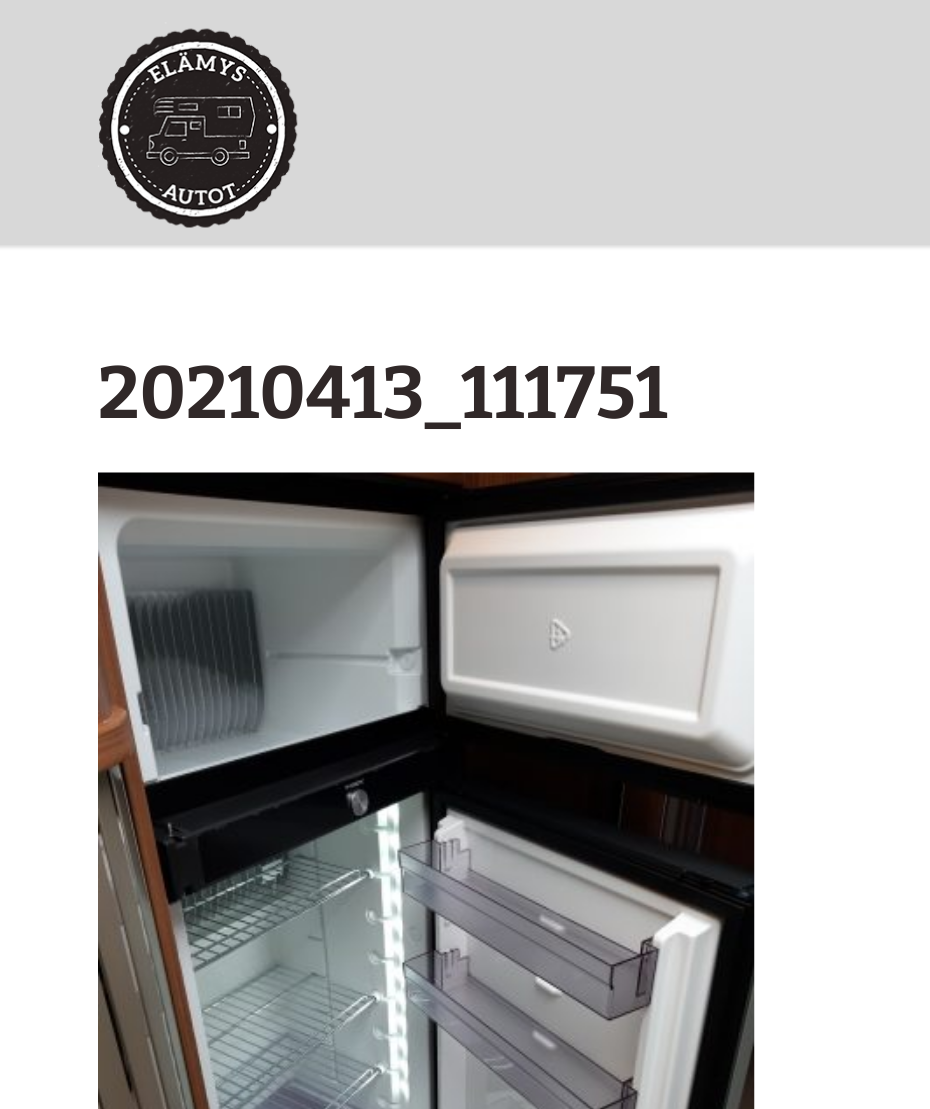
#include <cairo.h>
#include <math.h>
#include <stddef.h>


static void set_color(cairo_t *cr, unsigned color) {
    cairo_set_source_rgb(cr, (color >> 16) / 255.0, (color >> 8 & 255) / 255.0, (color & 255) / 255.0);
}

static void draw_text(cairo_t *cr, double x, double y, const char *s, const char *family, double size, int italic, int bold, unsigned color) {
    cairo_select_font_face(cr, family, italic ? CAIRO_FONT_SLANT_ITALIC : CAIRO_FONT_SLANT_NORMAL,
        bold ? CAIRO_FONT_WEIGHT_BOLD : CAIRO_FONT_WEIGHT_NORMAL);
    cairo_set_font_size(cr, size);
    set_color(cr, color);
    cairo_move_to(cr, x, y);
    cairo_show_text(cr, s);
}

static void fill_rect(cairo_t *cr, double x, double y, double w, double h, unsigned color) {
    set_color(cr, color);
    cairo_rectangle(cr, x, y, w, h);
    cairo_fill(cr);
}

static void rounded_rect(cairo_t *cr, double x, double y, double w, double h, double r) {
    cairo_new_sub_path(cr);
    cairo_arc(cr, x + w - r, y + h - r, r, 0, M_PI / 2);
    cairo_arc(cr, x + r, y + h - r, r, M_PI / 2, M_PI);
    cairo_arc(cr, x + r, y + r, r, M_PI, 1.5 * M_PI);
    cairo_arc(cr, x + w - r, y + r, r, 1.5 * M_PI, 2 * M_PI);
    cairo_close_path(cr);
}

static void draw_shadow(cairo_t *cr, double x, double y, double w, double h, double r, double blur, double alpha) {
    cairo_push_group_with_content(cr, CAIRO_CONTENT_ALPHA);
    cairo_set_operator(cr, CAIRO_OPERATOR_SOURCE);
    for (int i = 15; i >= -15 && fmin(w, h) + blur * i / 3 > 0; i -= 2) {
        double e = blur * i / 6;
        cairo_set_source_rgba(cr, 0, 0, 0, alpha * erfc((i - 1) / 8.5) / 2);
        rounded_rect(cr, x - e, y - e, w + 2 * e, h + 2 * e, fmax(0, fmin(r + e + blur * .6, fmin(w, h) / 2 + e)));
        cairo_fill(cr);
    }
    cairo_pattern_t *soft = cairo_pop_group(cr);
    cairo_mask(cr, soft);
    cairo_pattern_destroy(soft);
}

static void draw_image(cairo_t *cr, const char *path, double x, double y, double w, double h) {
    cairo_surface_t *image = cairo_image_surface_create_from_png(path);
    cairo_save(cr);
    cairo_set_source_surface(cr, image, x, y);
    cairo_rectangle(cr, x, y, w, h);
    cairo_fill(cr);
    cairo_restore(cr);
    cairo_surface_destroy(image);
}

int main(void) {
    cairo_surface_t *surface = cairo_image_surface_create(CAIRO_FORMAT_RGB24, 930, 1109);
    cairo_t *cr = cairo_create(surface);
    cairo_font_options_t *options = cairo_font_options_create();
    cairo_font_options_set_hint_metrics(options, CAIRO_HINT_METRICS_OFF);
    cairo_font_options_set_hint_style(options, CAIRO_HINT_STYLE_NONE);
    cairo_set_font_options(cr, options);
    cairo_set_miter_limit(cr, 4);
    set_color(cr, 0xFFFFFF);
    cairo_paint(cr);
    set_color(cr, 0x000000);
    draw_shadow(cr, -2, -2, 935, 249, 0, 2, 0.16);
    fill_rect(cr, 0, 0, 930, 245, 0xD8D8D8);
    draw_image(cr, "assets/img1.png", 98, 22, 200, 206);
    draw_text(cr, 98, 418, "20210413_111751", "Bitter", 73.5, 0, 1, 0x302828);
    draw_image(cr, "assets/img2.png", 98, 472, 657, 637);
    cairo_surface_write_to_png(surface, "output.png");
    cairo_font_options_destroy(options);
    cairo_destroy(cr);
    cairo_surface_destroy(surface);
    return 0;
}
